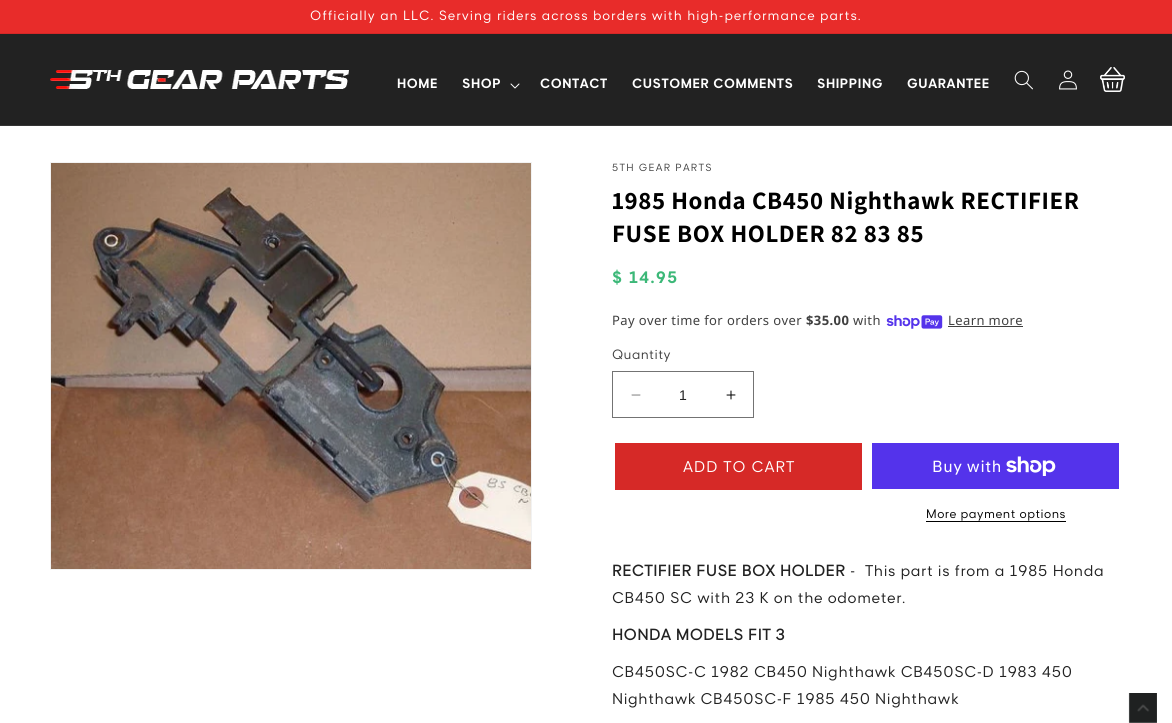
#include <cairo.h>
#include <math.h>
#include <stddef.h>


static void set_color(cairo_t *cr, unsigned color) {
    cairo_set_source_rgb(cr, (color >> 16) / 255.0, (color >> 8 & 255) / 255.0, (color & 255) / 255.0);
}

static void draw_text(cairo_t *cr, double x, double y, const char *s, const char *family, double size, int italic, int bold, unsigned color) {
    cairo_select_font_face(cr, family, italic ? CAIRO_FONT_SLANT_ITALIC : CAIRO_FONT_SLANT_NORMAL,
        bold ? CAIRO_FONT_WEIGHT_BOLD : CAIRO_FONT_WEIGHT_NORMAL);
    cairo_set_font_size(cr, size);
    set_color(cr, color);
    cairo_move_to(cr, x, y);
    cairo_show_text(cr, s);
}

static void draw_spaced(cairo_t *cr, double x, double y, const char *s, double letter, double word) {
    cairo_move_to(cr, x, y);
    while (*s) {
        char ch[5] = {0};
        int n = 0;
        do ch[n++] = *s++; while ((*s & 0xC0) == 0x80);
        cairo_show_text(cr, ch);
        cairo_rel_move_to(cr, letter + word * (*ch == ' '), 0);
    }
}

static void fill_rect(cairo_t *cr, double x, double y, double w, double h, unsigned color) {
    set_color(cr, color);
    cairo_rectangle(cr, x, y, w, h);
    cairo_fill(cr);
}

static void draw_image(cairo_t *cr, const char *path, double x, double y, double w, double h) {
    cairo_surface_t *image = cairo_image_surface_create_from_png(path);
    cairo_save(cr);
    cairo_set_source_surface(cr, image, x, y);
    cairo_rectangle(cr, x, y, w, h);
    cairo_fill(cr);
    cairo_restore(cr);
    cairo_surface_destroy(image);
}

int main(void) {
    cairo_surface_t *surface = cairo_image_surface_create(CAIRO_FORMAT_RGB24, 1172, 723);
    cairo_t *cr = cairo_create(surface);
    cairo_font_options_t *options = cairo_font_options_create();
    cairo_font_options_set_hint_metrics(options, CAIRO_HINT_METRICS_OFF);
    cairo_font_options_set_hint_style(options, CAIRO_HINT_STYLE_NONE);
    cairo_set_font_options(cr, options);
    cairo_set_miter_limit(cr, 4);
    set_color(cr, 0xFFFFFF);
    cairo_paint(cr);
    fill_rect(cr, 0, 0, 1172, 33, 0xE82C2A);
    fill_rect(cr, 0, 33, 1172, 1, 0xD52827);
    cairo_select_font_face(cr, "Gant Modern", CAIRO_FONT_SLANT_NORMAL, CAIRO_FONT_WEIGHT_NORMAL);
    cairo_set_font_size(cr, 13);
    set_color(cr, 0xFFFFFF);
    draw_spaced(cr, 310, 20, "Officially an LLC. Serving riders across borders with high-performance parts.", 1, 0);
    fill_rect(cr, 0, 34, 1172, 91, 0x222222);
    fill_rect(cr, 0, 125, 1172, 1, 0x343434);
    draw_image(cr, "assets/img1.png", 50, 70, 299, 19);
    cairo_select_font_face(cr, "Gant Modern", CAIRO_FONT_SLANT_NORMAL, CAIRO_FONT_WEIGHT_BOLD);
    set_color(cr, 0xFFFFFF);
    draw_spaced(cr, 397, 88, "HOME", 0.6, 0);
    draw_spaced(cr, 462, 88, "SHOP", 0.6, 0);
    draw_image(cr, "assets/img2.png", 510, 83, 10, 6);
    draw_spaced(cr, 540, 88, "CONTACT", 0.6, 0);
    draw_spaced(cr, 632, 88, "CUSTOMER COMMENTS", 0.6, 0);
    draw_spaced(cr, 817, 88, "SHIPPING", 0.6, 0);
    draw_spaced(cr, 907, 88, "GUARANTEE", 0.6, 0);
    draw_image(cr, "assets/img3.png", 1014, 70, 19, 20);
    draw_image(cr, "assets/img4.png", 1059, 70, 18, 20);
    draw_image(cr, "assets/img5.png", 1100, 67, 25, 25);
    cairo_rectangle(cr, 50.5, 162.5, 481, 407);
    set_color(cr, 0xF2F2F2);
    cairo_set_line_width(cr, 1);
    cairo_stroke(cr);
    draw_image(cr, "assets/img6.png", 51, 163, 480, 406);
    cairo_select_font_face(cr, "Gant Modern", CAIRO_FONT_SLANT_NORMAL, CAIRO_FONT_WEIGHT_NORMAL);
    cairo_set_font_size(cr, 10);
    set_color(cr, 0x404040);
    draw_spaced(cr, 612, 171, "5TH GEAR PARTS", 1.25, 0);
    cairo_select_font_face(cr, "Assistant", CAIRO_FONT_SLANT_NORMAL, CAIRO_FONT_WEIGHT_BOLD);
    cairo_set_font_size(cr, 25);
    set_color(cr, 0x000000);
    draw_spaced(cr, 612, 209, "1985 Honda CB450 Nighthawk RECTIFIER", 0.6, 0);
    draw_spaced(cr, 612, 242, "FUSE BOX HOLDER 82 83 85", 0.6, 0);
    cairo_select_font_face(cr, "Gant Modern", CAIRO_FONT_SLANT_NORMAL, CAIRO_FONT_WEIGHT_BOLD);
    cairo_set_font_size(cr, 16);
    set_color(cr, 0x3CB878);
    draw_spaced(cr, 612, 283, "$ 14.95", 1.25, 0);
    cairo_select_font_face(cr, "Noto Sans", CAIRO_FONT_SLANT_NORMAL, CAIRO_FONT_WEIGHT_NORMAL);
    cairo_set_font_size(cr, 13);
    set_color(cr, 0x404040);
    draw_spaced(cr, 612, 325, "Pay over time for orders over", 0.4, 0);
    cairo_select_font_face(cr, "Noto Sans", CAIRO_FONT_SLANT_NORMAL, CAIRO_FONT_WEIGHT_BOLD);
    draw_spaced(cr, 806, 325, "$35.00", 0.4, 0);
    cairo_select_font_face(cr, "Noto Sans", CAIRO_FONT_SLANT_NORMAL, CAIRO_FONT_WEIGHT_NORMAL);
    draw_spaced(cr, 853, 325, "with", 0.4, 0);
    draw_image(cr, "assets/img7.png", 886, 315, 57, 14);
    draw_spaced(cr, 948, 325, "Learn more", 0.4, 0);
    fill_rect(cr, 948, 326, 75, 1, 0x404040);
    cairo_select_font_face(cr, "Gant Modern", CAIRO_FONT_SLANT_NORMAL, CAIRO_FONT_WEIGHT_NORMAL);
    draw_spaced(cr, 612, 359, "Quantity", 0.4, 0);
    draw_image(cr, "assets/img8.png", 631, 394, 10, 2);
    draw_image(cr, "assets/img9.png", 726, 390, 10, 10);
    cairo_rectangle(cr, 612.5, 371.5, 141, 46);
    set_color(cr, 0x737373);
    cairo_stroke(cr);
    draw_text(cr, 679, 400, "1", "Liberation Sans", 14, 0, 0, 0x222222);
    fill_rect(cr, 615, 443, 247, 47, 0xD62927);
    cairo_select_font_face(cr, "Gant Modern", CAIRO_FONT_SLANT_NORMAL, CAIRO_FONT_WEIGHT_NORMAL);
    cairo_set_font_size(cr, 15);
    set_color(cr, 0xFFFFFF);
    draw_spaced(cr, 683, 472, "ADD TO CART", 1, 0);
    fill_rect(cr, 872, 443, 247, 46, 0x5433EB);
    cairo_select_font_face(cr, "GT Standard", CAIRO_FONT_SLANT_NORMAL, CAIRO_FONT_WEIGHT_NORMAL);
    cairo_set_font_size(cr, 16);
    set_color(cr, 0xFFFFFF);
    draw_spaced(cr, 932, 472, "Buy with", 0.6, 0);
    draw_image(cr, "assets/img10.png", 1006, 456, 50, 20);
    cairo_select_font_face(cr, "Gant Modern", CAIRO_FONT_SLANT_NORMAL, CAIRO_FONT_WEIGHT_NORMAL);
    cairo_set_font_size(cr, 12);
    set_color(cr, 0x000000);
    draw_spaced(cr, 926, 518, "More payment options", 0.5, 0);
    fill_rect(cr, 926, 521, 140, 1, 0x000000);
    cairo_select_font_face(cr, "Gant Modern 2", CAIRO_FONT_SLANT_NORMAL, CAIRO_FONT_WEIGHT_BOLD);
    cairo_set_font_size(cr, 15);
    set_color(cr, 0x222222);
    draw_spaced(cr, 612, 576, "RECTIFIER FUSE BOX HOLDER", 0.6, 0);
    cairo_select_font_face(cr, "Gant Modern", CAIRO_FONT_SLANT_NORMAL, CAIRO_FONT_WEIGHT_NORMAL);
    draw_spaced(cr, 850, 576, "-  This part is from a 1985 Honda", 0.6, 0);
    draw_spaced(cr, 612, 603, "CB450 SC with 23 K on the odometer.", 0.6, 0);
    cairo_select_font_face(cr, "Gant Modern 2", CAIRO_FONT_SLANT_NORMAL, CAIRO_FONT_WEIGHT_BOLD);
    draw_spaced(cr, 612, 640, "HONDA MODELS FIT 3", 0.6, 0);
    cairo_select_font_face(cr, "Gant Modern", CAIRO_FONT_SLANT_NORMAL, CAIRO_FONT_WEIGHT_NORMAL);
    draw_spaced(cr, 612, 677, "CB450SC-C 1982 CB450 Nighthawk CB450SC-D 1983 450", 0.6, 0);
    draw_spaced(cr, 612, 704, "Nighthawk CB450SC-F 1985 450 Nighthawk", 0.6, 0);
    draw_image(cr, "assets/img11.png", 1128, 693, 29, 30);
    cairo_surface_write_to_png(surface, "output.png");
    cairo_font_options_destroy(options);
    cairo_destroy(cr);
    cairo_surface_destroy(surface);
    return 0;
}
